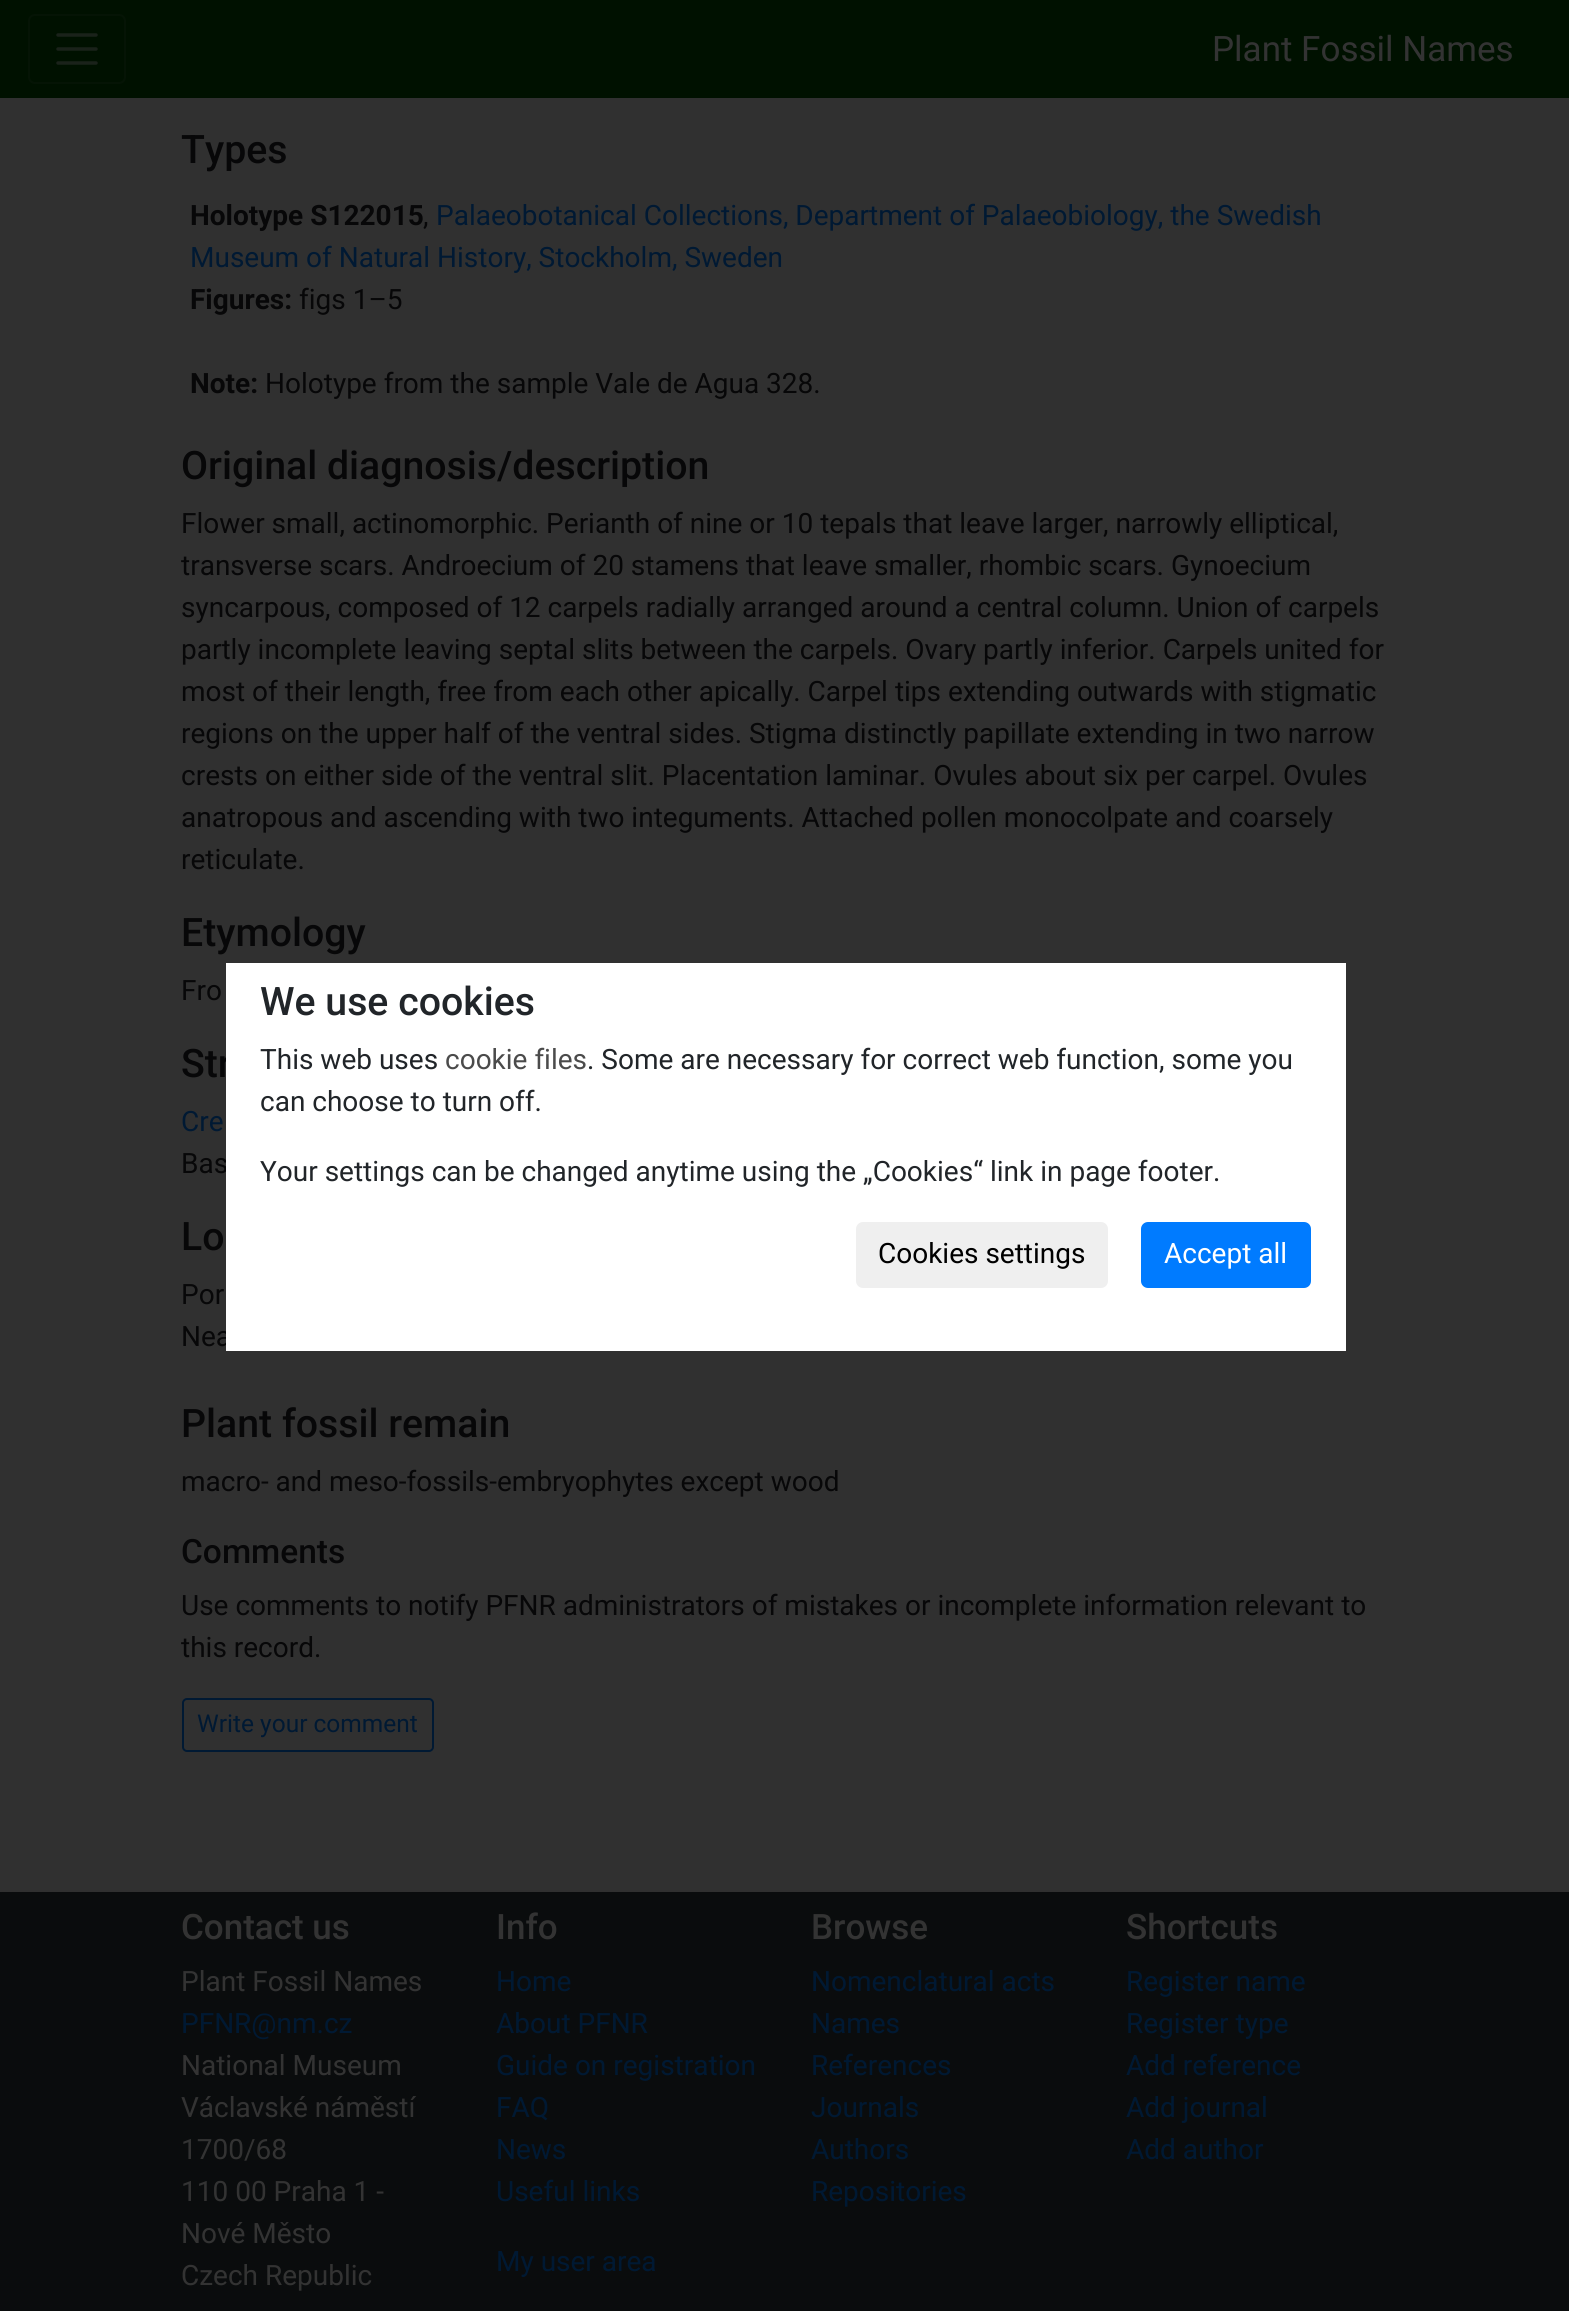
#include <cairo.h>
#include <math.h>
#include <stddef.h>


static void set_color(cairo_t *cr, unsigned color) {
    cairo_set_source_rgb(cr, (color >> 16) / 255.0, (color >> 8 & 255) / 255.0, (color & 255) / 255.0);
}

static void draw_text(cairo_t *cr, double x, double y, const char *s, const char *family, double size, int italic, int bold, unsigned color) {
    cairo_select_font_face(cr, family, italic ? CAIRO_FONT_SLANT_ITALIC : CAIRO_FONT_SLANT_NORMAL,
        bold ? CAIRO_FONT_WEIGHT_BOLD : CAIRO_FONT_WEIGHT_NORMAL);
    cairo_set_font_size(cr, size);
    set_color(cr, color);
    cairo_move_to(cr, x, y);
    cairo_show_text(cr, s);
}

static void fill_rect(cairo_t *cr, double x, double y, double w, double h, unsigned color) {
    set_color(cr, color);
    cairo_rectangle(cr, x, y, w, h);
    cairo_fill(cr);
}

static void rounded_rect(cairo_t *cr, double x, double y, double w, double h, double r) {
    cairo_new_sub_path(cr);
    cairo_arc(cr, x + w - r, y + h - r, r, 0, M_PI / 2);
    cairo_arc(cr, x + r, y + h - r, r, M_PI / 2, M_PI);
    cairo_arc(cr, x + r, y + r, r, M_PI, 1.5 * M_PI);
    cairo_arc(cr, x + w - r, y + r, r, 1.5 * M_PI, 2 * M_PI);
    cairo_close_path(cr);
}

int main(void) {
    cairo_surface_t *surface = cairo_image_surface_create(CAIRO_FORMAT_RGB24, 1569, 2311);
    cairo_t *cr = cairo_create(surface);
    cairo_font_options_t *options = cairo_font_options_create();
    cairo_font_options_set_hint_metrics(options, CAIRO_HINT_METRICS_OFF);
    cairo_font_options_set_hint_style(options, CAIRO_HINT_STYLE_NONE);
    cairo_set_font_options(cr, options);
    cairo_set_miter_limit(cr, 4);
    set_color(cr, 0x303030);
    cairo_paint(cr);
    fill_rect(cr, 0, 0, 1569, 98, 0x001100);
    rounded_rect(cr, 29, 15, 96, 68, 6);
    set_color(cr, 0x051405);
    cairo_stroke(cr);
    cairo_new_path(cr);
    cairo_move_to(cr, 58, 35);
    cairo_line_to(cr, 96, 35);
    cairo_move_to(cr, 58, 49);
    cairo_line_to(cr, 96, 49);
    cairo_move_to(cr, 58, 63);
    cairo_line_to(cr, 96, 63);
    set_color(cr, 0x1A221A);
    cairo_set_line_width(cr, 3.5);
    cairo_set_line_cap(cr, CAIRO_LINE_CAP_ROUND);
    cairo_stroke(cr);
    draw_text(cr, 1212, 61, "Plant Fossil Names", "Roboto", 35, 0, 0, 0x333333);
    draw_text(cr, 181, 163, "Types", "Roboto Medium", 39.25, 0, 0, 0x070708);
    draw_text(cr, 190, 225, "Holotype S122015", "Roboto", 28, 0, 1, 0x070708);
    draw_text(cr, 423, 225, ",", "Roboto", 28, 0, 0, 0x070708);
    draw_text(cr, 436, 225, "Palaeobotanical Collections, Department of Palaeobiology, the Swedish", "Roboto", 28, 0, 0, 0x001933);
    draw_text(cr, 190, 267, "Museum of Natural History, Stockholm, Sweden", "Roboto", 28, 0, 0, 0x001933);
    draw_text(cr, 190, 309, "Figures:", "Roboto", 28, 0, 1, 0x070708);
    draw_text(cr, 299, 309, "figs 1–5", "Roboto", 28, 0, 0, 0x070708);
    draw_text(cr, 190, 393, "Note:", "Roboto", 28, 0, 1, 0x070708);
    draw_text(cr, 265, 393, "Holotype from the sample Vale de Agua 328.", "Roboto", 28, 0, 0, 0x070708);
    draw_text(cr, 181, 479, "Original diagnosis/description", "Roboto Medium", 39.25, 0, 0, 0x070708);
    draw_text(cr, 181, 533, "Flower small, actinomorphic. Perianth of nine or 10 tepals that leave larger, narrowly elliptical,", "Roboto", 28, 0, 0, 0x070708);
    draw_text(cr, 181, 575, "transverse scars. Androecium of 20 stamens that leave smaller, rhombic scars. Gynoecium", "Roboto", 28, 0, 0, 0x070708);
    draw_text(cr, 181, 617, "syncarpous, composed of 12 carpels radially arranged around a central column. Union of carpels", "Roboto", 28, 0, 0, 0x070708);
    draw_text(cr, 181, 659, "partly incomplete leaving septal slits between the carpels. Ovary partly inferior. Carpels united for", "Roboto", 28, 0, 0, 0x070708);
    draw_text(cr, 181, 701, "most of their length, free from each other apically. Carpel tips extending outwards with stigmatic", "Roboto", 28, 0, 0, 0x070708);
    draw_text(cr, 181, 743, "regions on the upper half of the ventral sides. Stigma distinctly papillate extending in two narrow", "Roboto", 28, 0, 0, 0x070708);
    draw_text(cr, 181, 785, "crests on either side of the ventral slit. Placentation laminar. Ovules about six per carpel. Ovules", "Roboto", 28, 0, 0, 0x070708);
    draw_text(cr, 181, 827, "anatropous and ascending with two integuments. Attached pollen monocolpate and coarsely", "Roboto", 28, 0, 0, 0x070708);
    draw_text(cr, 181, 869, "reticulate.", "Roboto", 28, 0, 0, 0x070708);
    draw_text(cr, 181, 946, "Etymology", "Roboto Medium", 39.25, 0, 0, 0x070708);
    draw_text(cr, 181, 1000, "Fro", "Roboto", 28, 0, 0, 0x070708);
    draw_text(cr, 181, 1077, "Str", "Roboto Medium", 39.25, 0, 0, 0x070708);
    draw_text(cr, 181, 1131, "Cre", "Roboto", 28, 0, 0, 0x001933);
    draw_text(cr, 181, 1173, "Bas", "Roboto", 28, 0, 0, 0x070708);
    draw_text(cr, 181, 1250, "Lo", "Roboto Medium", 39.25, 0, 0, 0x070708);
    draw_text(cr, 181, 1304, "Por", "Roboto", 28, 0, 0, 0x070708);
    draw_text(cr, 181, 1346, "Nea", "Roboto", 28, 0, 0, 0x070708);
    draw_text(cr, 181, 1437, "Plant fossil remain", "Roboto Medium", 39.25, 0, 0, 0x070708);
    draw_text(cr, 181, 1491, "macro- and meso-fossils-embryophytes except wood", "Roboto", 28, 0, 0, 0x070708);
    draw_text(cr, 181, 1563, "Comments", "Roboto Medium", 33.5, 0, 0, 0x070708);
    draw_text(cr, 181, 1615, "Use comments to notify PFNR administrators of mistakes or incomplete information relevant to", "Roboto", 28, 0, 0, 0x070708);
    draw_text(cr, 181, 1657, "this record.", "Roboto", 28, 0, 0, 0x070708);
    rounded_rect(cr, 183, 1699, 250, 52, 4);
    set_color(cr, 0x001933);
    cairo_set_line_width(cr, 2);
    cairo_set_line_cap(cr, CAIRO_LINE_CAP_BUTT);
    cairo_stroke(cr);
    draw_text(cr, 197, 1732, "Write your comment", "Roboto", 24.5, 0, 0, 0x001933);
    fill_rect(cr, 226, 963, 1120, 388, 0xFFFFFF);
    draw_text(cr, 260, 1015, "We use cookies", "Roboto Medium", 39.25, 0, 0, 0x212529);
    draw_text(cr, 260, 1069, "This web uses", "Roboto", 28, 0, 0, 0x212529);
    draw_text(cr, 445, 1069, "cookie files", "Roboto", 28, 0, 0, 0x4B4B4B);
    draw_text(cr, 587, 1069, ". Some are necessary for correct web function, some you", "Roboto", 28, 0, 0, 0x212529);
    draw_text(cr, 260, 1111, "can choose to turn off.", "Roboto", 28, 0, 0, 0x212529);
    draw_text(cr, 260, 1181, "Your settings can be changed anytime using the „Cookies“ link in page footer.", "Roboto", 28, 0, 0, 0x212529);
    set_color(cr, 0xEFEFEF);
    rounded_rect(cr, 856, 1222, 252, 66, 7);
    cairo_fill(cr);
    draw_text(cr, 878, 1263, "Cookies settings", "Roboto", 28, 0, 0, 0x000000);
    set_color(cr, 0x007BFF);
    rounded_rect(cr, 1142, 1223, 168, 64, 6);
    cairo_fill_preserve(cr);
    cairo_stroke(cr);
    draw_text(cr, 1164, 1263, "Accept all", "Roboto", 28, 0, 0, 0xFFFFFF);
    fill_rect(cr, 0, 1892, 1569, 419, 0x0A0C0D);
    draw_text(cr, 181, 1939, "Contact us", "Roboto Medium", 35, 0, 0, 0x333333);
    draw_text(cr, 181, 1991, "Plant Fossil Names", "Roboto", 28, 0, 0, 0x333333);
    draw_text(cr, 181, 2033, "PFNR@nm.cz", "Roboto", 28, 0, 0, 0x001933);
    draw_text(cr, 181, 2075, "National Museum", "Roboto", 28, 0, 0, 0x333333);
    draw_text(cr, 181, 2117, "Václavské náměstí", "Roboto", 28, 0, 0, 0x333333);
    draw_text(cr, 181, 2159, "1700/68", "Roboto", 28, 0, 0, 0x333333);
    draw_text(cr, 181, 2201, "110 00 Praha 1 -", "Roboto", 28, 0, 0, 0x333333);
    draw_text(cr, 181, 2243, "Nové Město", "Roboto", 28, 0, 0, 0x333333);
    draw_text(cr, 181, 2285, "Czech Republic", "Roboto", 28, 0, 0, 0x333333);
    draw_text(cr, 496, 1939, "Info", "Roboto Medium", 35, 0, 0, 0x333333);
    draw_text(cr, 496, 1991, "Home", "Roboto", 28, 0, 0, 0x001933);
    draw_text(cr, 496, 2033, "About PFNR", "Roboto", 28, 0, 0, 0x001933);
    draw_text(cr, 496, 2075, "Guide on registration", "Roboto", 28, 0, 0, 0x001933);
    draw_text(cr, 496, 2117, "FAQ", "Roboto", 28, 0, 0, 0x001933);
    draw_text(cr, 496, 2159, "News", "Roboto", 28, 0, 0, 0x001933);
    draw_text(cr, 496, 2201, "Useful links", "Roboto", 28, 0, 0, 0x001933);
    draw_text(cr, 496, 2271, "My user area", "Roboto", 28, 0, 0, 0x001933);
    draw_text(cr, 811, 1939, "Browse", "Roboto Medium", 35, 0, 0, 0x333333);
    draw_text(cr, 811, 1991, "Nomenclatural acts", "Roboto", 28, 0, 0, 0x001933);
    draw_text(cr, 811, 2033, "Names", "Roboto", 28, 0, 0, 0x001933);
    draw_text(cr, 811, 2075, "References", "Roboto", 28, 0, 0, 0x001933);
    draw_text(cr, 811, 2117, "Journals", "Roboto", 28, 0, 0, 0x001933);
    draw_text(cr, 811, 2159, "Authors", "Roboto", 28, 0, 0, 0x001933);
    draw_text(cr, 811, 2201, "Repositories", "Roboto", 28, 0, 0, 0x001933);
    draw_text(cr, 1126, 1939, "Shortcuts", "Roboto Medium", 35, 0, 0, 0x333333);
    draw_text(cr, 1126, 1991, "Register name", "Roboto", 28, 0, 0, 0x001933);
    draw_text(cr, 1126, 2033, "Register type", "Roboto", 28, 0, 0, 0x001933);
    draw_text(cr, 1126, 2075, "Add reference", "Roboto", 28, 0, 0, 0x001933);
    draw_text(cr, 1126, 2117, "Add journal", "Roboto", 28, 0, 0, 0x001933);
    draw_text(cr, 1126, 2159, "Add author", "Roboto", 28, 0, 0, 0x001933);
    cairo_surface_write_to_png(surface, "output.png");
    cairo_font_options_destroy(options);
    cairo_destroy(cr);
    cairo_surface_destroy(surface);
    return 0;
}
